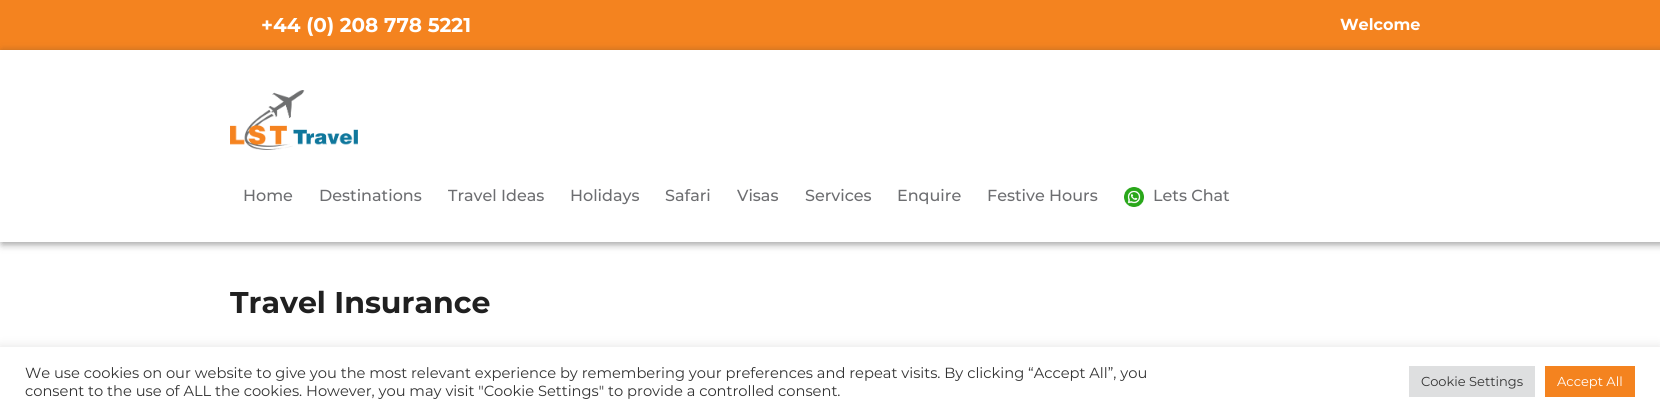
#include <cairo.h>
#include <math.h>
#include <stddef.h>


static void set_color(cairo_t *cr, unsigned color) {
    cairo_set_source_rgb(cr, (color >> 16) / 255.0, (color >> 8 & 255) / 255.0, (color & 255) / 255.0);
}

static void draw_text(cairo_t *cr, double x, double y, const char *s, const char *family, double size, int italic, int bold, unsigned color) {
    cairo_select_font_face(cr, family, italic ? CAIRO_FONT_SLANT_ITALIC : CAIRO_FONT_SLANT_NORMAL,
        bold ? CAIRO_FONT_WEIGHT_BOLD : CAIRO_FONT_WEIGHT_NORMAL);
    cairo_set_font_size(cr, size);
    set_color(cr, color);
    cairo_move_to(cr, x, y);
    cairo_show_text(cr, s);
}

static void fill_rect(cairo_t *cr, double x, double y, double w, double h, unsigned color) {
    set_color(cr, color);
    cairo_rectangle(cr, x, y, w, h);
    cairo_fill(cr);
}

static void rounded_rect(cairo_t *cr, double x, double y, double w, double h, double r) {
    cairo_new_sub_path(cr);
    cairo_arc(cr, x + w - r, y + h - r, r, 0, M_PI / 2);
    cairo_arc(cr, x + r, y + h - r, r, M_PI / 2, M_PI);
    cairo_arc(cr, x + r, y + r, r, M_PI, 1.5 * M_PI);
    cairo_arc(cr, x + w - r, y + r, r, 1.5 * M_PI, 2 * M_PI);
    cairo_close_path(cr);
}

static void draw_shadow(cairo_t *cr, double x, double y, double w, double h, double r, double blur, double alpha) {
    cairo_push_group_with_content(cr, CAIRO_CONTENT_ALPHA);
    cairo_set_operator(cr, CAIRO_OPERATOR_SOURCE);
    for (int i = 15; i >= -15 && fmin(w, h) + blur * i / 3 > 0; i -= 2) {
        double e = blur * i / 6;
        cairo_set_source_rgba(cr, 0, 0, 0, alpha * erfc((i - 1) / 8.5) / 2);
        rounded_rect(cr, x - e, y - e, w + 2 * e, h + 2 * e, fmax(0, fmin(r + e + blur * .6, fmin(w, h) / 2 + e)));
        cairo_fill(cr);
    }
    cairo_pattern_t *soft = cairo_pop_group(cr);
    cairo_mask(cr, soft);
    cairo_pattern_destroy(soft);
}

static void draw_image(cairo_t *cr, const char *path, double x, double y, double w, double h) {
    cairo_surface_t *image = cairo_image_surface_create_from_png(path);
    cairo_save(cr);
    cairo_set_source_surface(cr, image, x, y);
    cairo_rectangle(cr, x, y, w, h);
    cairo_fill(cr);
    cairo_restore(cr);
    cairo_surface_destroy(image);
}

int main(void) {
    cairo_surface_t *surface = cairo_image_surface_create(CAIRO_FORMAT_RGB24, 1660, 416);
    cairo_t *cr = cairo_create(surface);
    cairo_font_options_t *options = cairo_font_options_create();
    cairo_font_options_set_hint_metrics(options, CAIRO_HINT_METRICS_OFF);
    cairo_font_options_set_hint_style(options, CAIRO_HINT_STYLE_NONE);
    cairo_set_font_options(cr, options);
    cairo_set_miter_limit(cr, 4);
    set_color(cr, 0xF4831F);
    cairo_paint(cr);
    draw_text(cr, 261, 32, "+44 (0) 208 778 5221", "Montserrat", 20, 0, 1, 0xFFFFFF);
    draw_text(cr, 1340, 30, "Welcome", "Montserrat", 16, 0, 1, 0xFFFFFF);
    fill_rect(cr, 0, 50, 1660, 297, 0xFFFFFF);
    cairo_save(cr);
    cairo_set_fill_rule(cr, CAIRO_FILL_RULE_EVEN_ODD);
    cairo_new_path(cr);
    cairo_move_to(cr, 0, 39);
    cairo_line_to(cr, 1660, 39);
    cairo_line_to(cr, 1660, 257);
    cairo_line_to(cr, 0, 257);
    cairo_close_path(cr);
    cairo_move_to(cr, 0, 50);
    cairo_line_to(cr, 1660, 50);
    cairo_line_to(cr, 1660, 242);
    cairo_line_to(cr, 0, 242);
    cairo_close_path(cr);
    cairo_clip(cr);
    set_color(cr, 0x303030);
    draw_shadow(cr, 2, 52, 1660, 192, 0, 4, 0.5);
    cairo_restore(cr);
    draw_image(cr, "assets/img1.png", 230, 90, 128, 60);
    draw_text(cr, 243, 201, "Home", "Montserrat Medium", 16, 0, 0, 0x6D6E71);
    draw_text(cr, 319, 201, "Destinations", "Montserrat Medium", 16, 0, 0, 0x6D6E71);
    draw_text(cr, 448, 201, "Travel Ideas", "Montserrat Medium", 16, 0, 0, 0x6D6E71);
    draw_text(cr, 570, 201, "Holidays", "Montserrat Medium", 16, 0, 0, 0x6D6E71);
    draw_text(cr, 665, 201, "Safari", "Montserrat Medium", 16, 0, 0, 0x6D6E71);
    draw_text(cr, 737, 201, "Visas", "Montserrat Medium", 16, 0, 0, 0x6D6E71);
    draw_text(cr, 805, 201, "Services", "Montserrat Medium", 16, 0, 0, 0x6D6E71);
    draw_text(cr, 897, 201, "Enquire", "Montserrat Medium", 16, 0, 0, 0x6D6E71);
    draw_text(cr, 987, 201, "Festive Hours", "Montserrat Medium", 16, 0, 0, 0x6D6E71);
    draw_image(cr, "assets/img2.png", 1124, 187, 20, 20);
    draw_text(cr, 1153, 201, "Lets Chat", "Montserrat Medium", 16, 0, 0, 0x6D6E71);
    draw_text(cr, 230, 313, "Travel Insurance", "Montserrat", 30, 0, 1, 0x202020);
    set_color(cr, 0xACABAB);
    draw_shadow(cr, 0, 346, 1660, 69, 0, 5, 0.3);
    fill_rect(cr, 0, 347, 1660, 69, 0xFFFFFF);
    draw_text(cr, 25, 378, "We use cookies on our website to give you the most relevant experience by remembering your preferences and repeat visits. By clicking “Accept All”, you", "Montserrat", 14.67, 0, 0, 0x333333);
    draw_text(cr, 25, 396, "consent to the use of ALL the cookies. However, you may visit \"Cookie Settings\" to provide a controlled consent.", "Montserrat", 14.67, 0, 0, 0x333333);
    fill_rect(cr, 1409, 366, 126, 31, 0xDEDFE0);
    draw_text(cr, 1421, 386, "Cookie Settings", "Montserrat", 13, 0, 0, 0x333333);
    fill_rect(cr, 1545, 366, 90, 31, 0xF4831F);
    draw_text(cr, 1557, 386, "Accept All", "Montserrat", 13, 0, 0, 0xFFFFFF);
    cairo_surface_write_to_png(surface, "output.png");
    cairo_font_options_destroy(options);
    cairo_destroy(cr);
    cairo_surface_destroy(surface);
    return 0;
}
